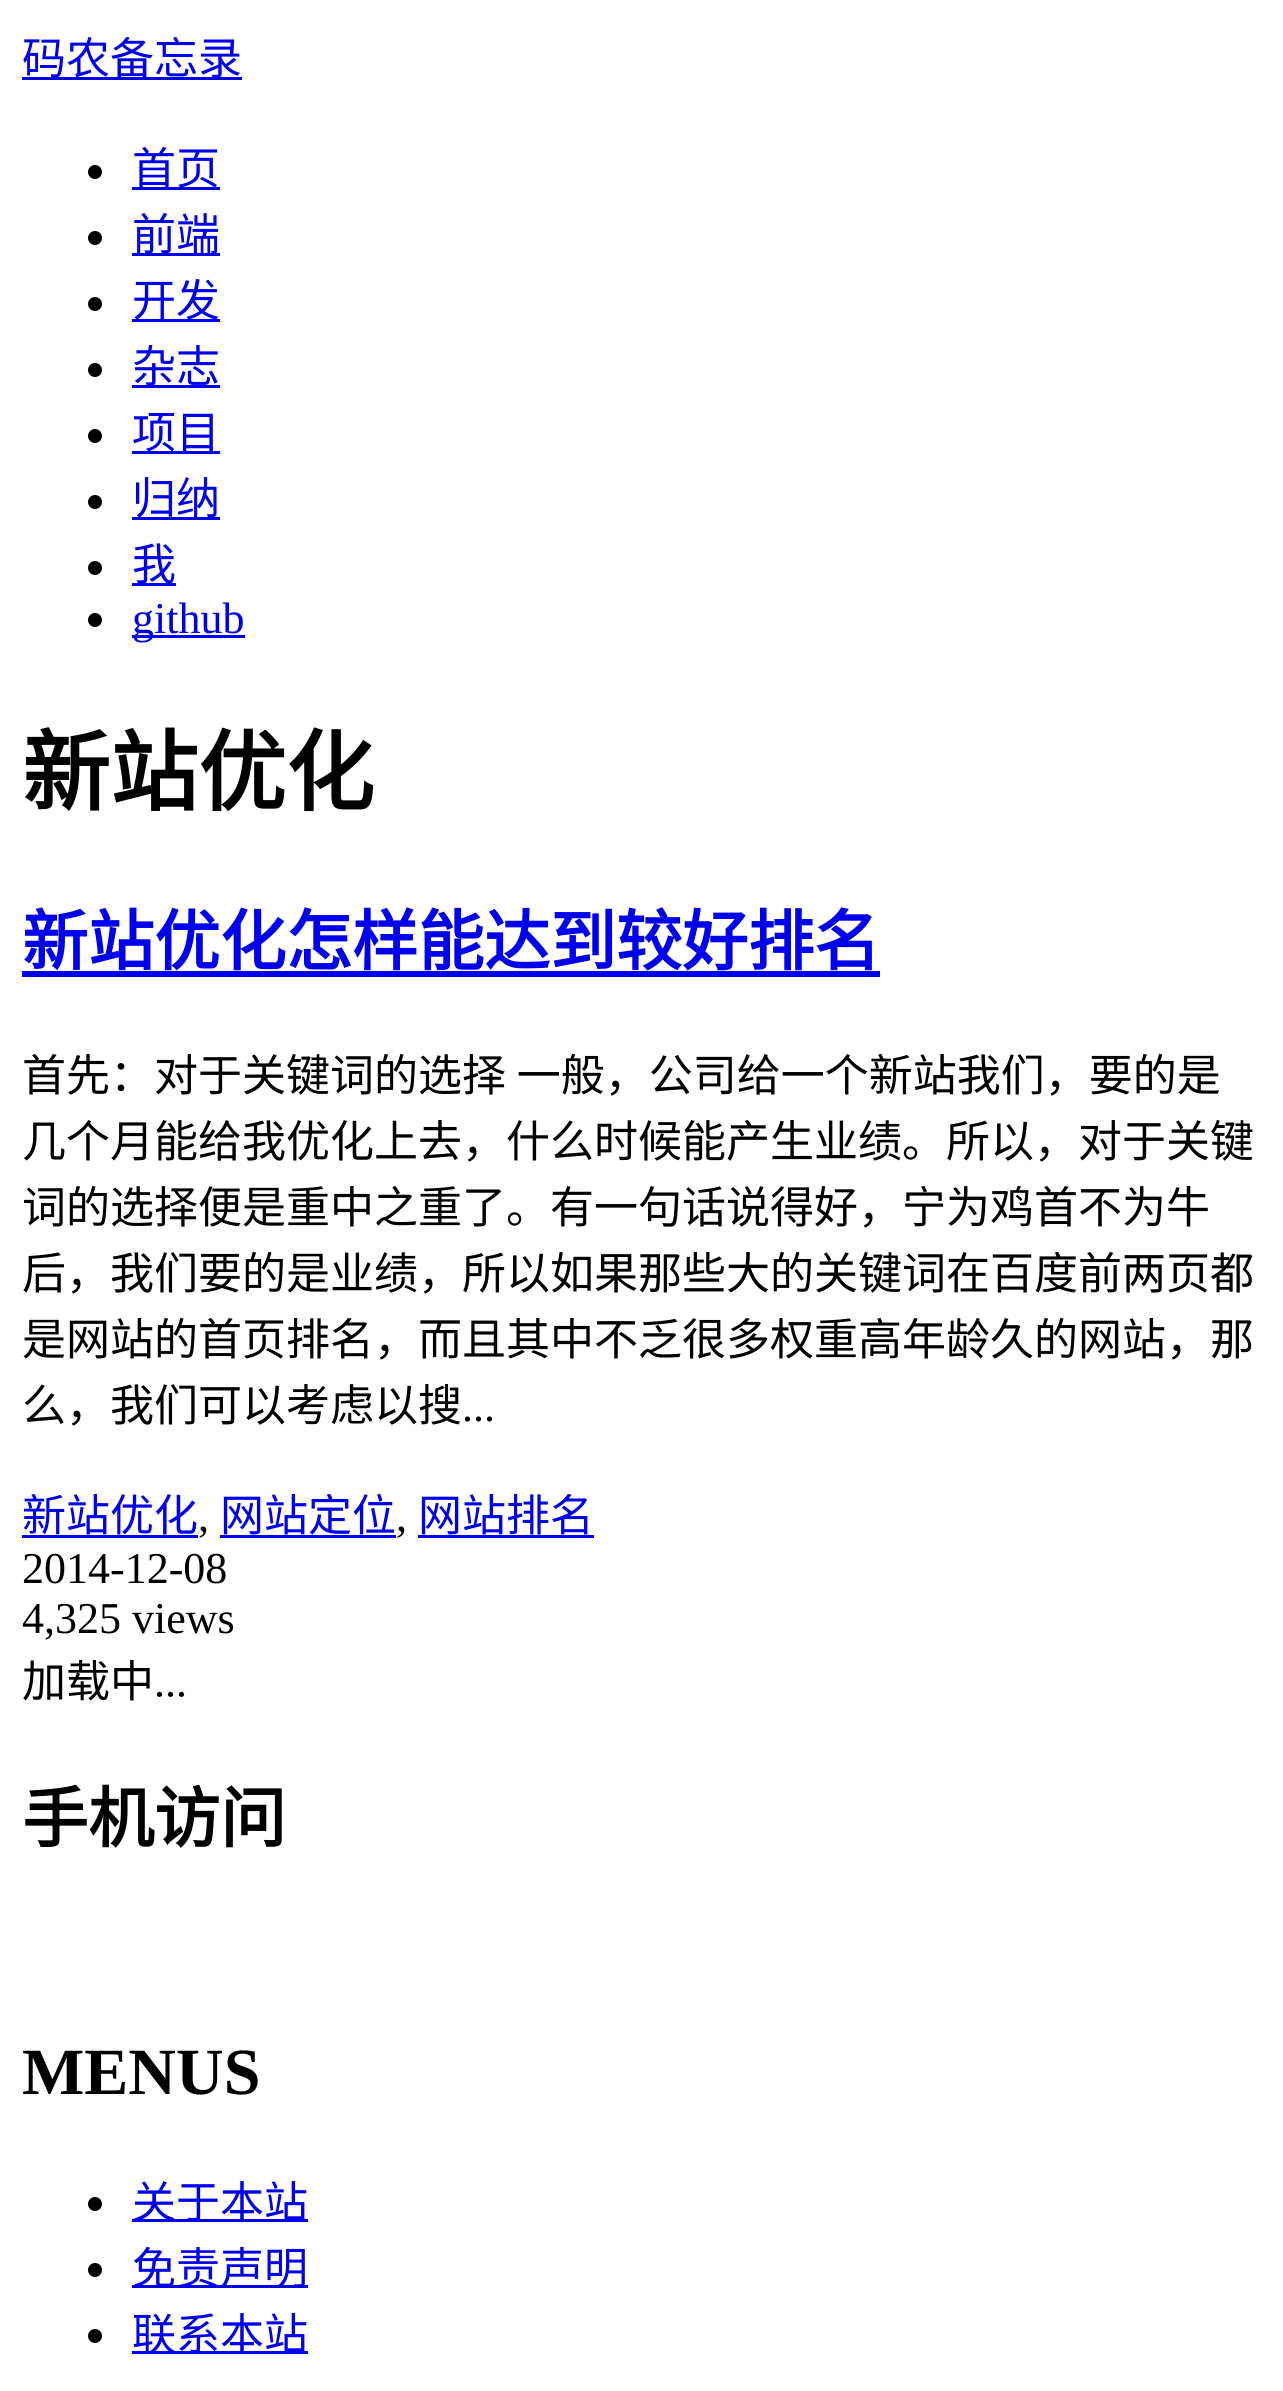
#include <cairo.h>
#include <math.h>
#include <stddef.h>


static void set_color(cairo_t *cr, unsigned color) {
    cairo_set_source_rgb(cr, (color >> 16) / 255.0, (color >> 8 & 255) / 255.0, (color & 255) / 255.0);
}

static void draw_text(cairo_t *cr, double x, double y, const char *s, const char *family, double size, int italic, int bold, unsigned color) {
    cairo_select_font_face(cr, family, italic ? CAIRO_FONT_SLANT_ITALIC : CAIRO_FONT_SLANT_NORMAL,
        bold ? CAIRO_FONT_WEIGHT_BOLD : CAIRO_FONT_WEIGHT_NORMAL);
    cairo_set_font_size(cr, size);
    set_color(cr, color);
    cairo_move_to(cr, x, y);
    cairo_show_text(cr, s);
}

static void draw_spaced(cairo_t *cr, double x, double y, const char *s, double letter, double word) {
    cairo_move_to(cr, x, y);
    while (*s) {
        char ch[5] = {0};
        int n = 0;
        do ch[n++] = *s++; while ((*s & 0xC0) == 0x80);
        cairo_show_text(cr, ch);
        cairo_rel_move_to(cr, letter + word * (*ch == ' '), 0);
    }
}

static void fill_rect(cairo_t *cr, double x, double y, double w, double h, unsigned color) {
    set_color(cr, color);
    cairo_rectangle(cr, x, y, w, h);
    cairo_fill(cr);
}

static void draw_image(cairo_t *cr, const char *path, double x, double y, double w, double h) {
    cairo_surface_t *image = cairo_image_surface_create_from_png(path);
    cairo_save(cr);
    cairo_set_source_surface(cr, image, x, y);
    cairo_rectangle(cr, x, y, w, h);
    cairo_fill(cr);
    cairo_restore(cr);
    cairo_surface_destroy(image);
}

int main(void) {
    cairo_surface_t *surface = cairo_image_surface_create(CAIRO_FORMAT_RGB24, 1283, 2391);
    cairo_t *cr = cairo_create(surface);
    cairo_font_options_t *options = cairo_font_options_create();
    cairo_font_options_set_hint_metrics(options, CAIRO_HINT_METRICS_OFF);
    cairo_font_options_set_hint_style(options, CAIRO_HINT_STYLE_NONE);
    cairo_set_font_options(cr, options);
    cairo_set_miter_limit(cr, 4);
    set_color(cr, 0xFFFFFF);
    cairo_paint(cr);
    fill_rect(cr, 22, 77, 220, 3, 0x0000EE);
    draw_text(cr, 22, 74, "码农备忘录", "Noto Sans CJK SC", 44, 0, 0, 0x0000EE);
    set_color(cr, 0x000000);
    cairo_new_path(cr);
    cairo_arc(cr, 95, 172, 7, 0, 2 * M_PI);
    cairo_fill(cr);
    fill_rect(cr, 132, 187, 88, 3, 0x0000EE);
    draw_text(cr, 132, 184, "首页", "Noto Sans CJK SC", 44, 0, 0, 0x0000EE);
    set_color(cr, 0x000000);
    cairo_new_path(cr);
    cairo_arc(cr, 95, 238, 7, 0, 2 * M_PI);
    cairo_fill(cr);
    fill_rect(cr, 132, 253, 88, 3, 0x0000EE);
    draw_text(cr, 132, 250, "前端", "Noto Sans CJK SC", 44, 0, 0, 0x0000EE);
    set_color(cr, 0x000000);
    cairo_new_path(cr);
    cairo_arc(cr, 95, 304, 7, 0, 2 * M_PI);
    cairo_fill(cr);
    fill_rect(cr, 132, 319, 88, 3, 0x0000EE);
    draw_text(cr, 132, 316, "开发", "Noto Sans CJK SC", 44, 0, 0, 0x0000EE);
    set_color(cr, 0x000000);
    cairo_new_path(cr);
    cairo_arc(cr, 95, 370, 7, 0, 2 * M_PI);
    cairo_fill(cr);
    fill_rect(cr, 132, 385, 88, 3, 0x0000EE);
    draw_text(cr, 132, 382, "杂志", "Noto Sans CJK SC", 44, 0, 0, 0x0000EE);
    set_color(cr, 0x000000);
    cairo_new_path(cr);
    cairo_arc(cr, 95, 436, 7, 0, 2 * M_PI);
    cairo_fill(cr);
    fill_rect(cr, 132, 451, 88, 3, 0x0000EE);
    draw_text(cr, 132, 448, "项目", "Noto Sans CJK SC", 44, 0, 0, 0x0000EE);
    set_color(cr, 0x000000);
    cairo_new_path(cr);
    cairo_arc(cr, 95, 502, 7, 0, 2 * M_PI);
    cairo_fill(cr);
    fill_rect(cr, 132, 517, 88, 3, 0x0000EE);
    draw_text(cr, 132, 514, "归纳", "Noto Sans CJK SC", 44, 0, 0, 0x0000EE);
    set_color(cr, 0x000000);
    cairo_new_path(cr);
    cairo_arc(cr, 95, 568, 7, 0, 2 * M_PI);
    cairo_fill(cr);
    fill_rect(cr, 132, 583, 44, 3, 0x0000EE);
    draw_text(cr, 132, 580, "我", "Noto Sans CJK SC", 44, 0, 0, 0x0000EE);
    set_color(cr, 0x000000);
    cairo_new_path(cr);
    cairo_arc(cr, 95, 620, 7, 0, 2 * M_PI);
    cairo_fill(cr);
    fill_rect(cr, 132, 635, 113, 3, 0x0000EE);
    draw_text(cr, 132, 633, "github", "Liberation Serif", 44, 0, 0, 0x0000EE);
    draw_text(cr, 22, 804, "新站优化", "Noto Sans CJK SC", 88, 0, 1, 0x000000);
    draw_text(cr, 22, 965, "新站优化怎样能达到较好排名", "Noto Sans CJK SC", 66, 0, 1, 0x0000EE);
    fill_rect(cr, 22, 971, 858, 6, 0x0000EE);
    cairo_select_font_face(cr, "Noto Sans CJK SC", CAIRO_FONT_SLANT_NORMAL, CAIRO_FONT_WEIGHT_NORMAL);
    cairo_set_font_size(cr, 44);
    set_color(cr, 0x000000);
    draw_spaced(cr, 22, 1091, "首先：对于关键词的选择 一般，公司给一个新站我们，要的是", 0, 1);
    draw_text(cr, 22, 1157, "几个月能给我优化上去，什么时候能产生业绩。所以，对于关键", "Noto Sans CJK SC", 44, 0, 0, 0x000000);
    draw_text(cr, 22, 1223, "词的选择便是重中之重了。有一句话说得好，宁为鸡首不为牛", "Noto Sans CJK SC", 44, 0, 0, 0x000000);
    draw_text(cr, 22, 1289, "后，我们要的是业绩，所以如果那些大的关键词在百度前两页都", "Noto Sans CJK SC", 44, 0, 0, 0x000000);
    draw_text(cr, 22, 1355, "是网站的首页排名，而且其中不乏很多权重高年龄久的网站，那", "Noto Sans CJK SC", 44, 0, 0, 0x000000);
    draw_text(cr, 22, 1421, "么，我们可以考虑以搜", "Noto Sans CJK SC", 44, 0, 0, 0x000000);
    draw_text(cr, 462, 1421, "...", "Liberation Serif", 44, 0, 0, 0x000000);
    draw_text(cr, 22, 1531, "新站优化", "Noto Sans CJK SC", 44, 0, 0, 0x0000EE);
    fill_rect(cr, 22, 1535, 176, 3, 0x0000EE);
    draw_text(cr, 198, 1531, ",", "Liberation Serif", 44, 0, 0, 0x000000);
    draw_text(cr, 220, 1531, "网站定位", "Noto Sans CJK SC", 44, 0, 0, 0x0000EE);
    fill_rect(cr, 220, 1535, 176, 3, 0x0000EE);
    draw_text(cr, 396, 1531, ",", "Liberation Serif", 44, 0, 0, 0x000000);
    draw_text(cr, 418, 1531, "网站排名", "Noto Sans CJK SC", 44, 0, 0, 0x0000EE);
    fill_rect(cr, 418, 1535, 176, 3, 0x0000EE);
    draw_text(cr, 22, 1583, "2014-12-08", "Liberation Serif", 44, 0, 0, 0x000000);
    draw_text(cr, 22, 1633, "4,325 views", "Liberation Serif", 44, 0, 0, 0x000000);
    draw_image(cr, "assets/img1.png", 23, 1660, 162, 41);
    draw_text(cr, 22, 1842, "手机访问", "Noto Sans CJK SC", 66, 0, 1, 0x000000);
    draw_text(cr, 22, 2094, "MENUS", "Liberation Serif", 66, 0, 1, 0x000000);
    cairo_new_path(cr);
    cairo_arc(cr, 95, 2204, 7, 0, 2 * M_PI);
    cairo_fill(cr);
    fill_rect(cr, 132, 2219, 176, 3, 0x0000EE);
    draw_text(cr, 132, 2218, "关于本站", "Noto Sans CJK SC", 44, 0, 0, 0x0000EE);
    set_color(cr, 0x000000);
    cairo_new_path(cr);
    cairo_arc(cr, 95, 2270, 7, 0, 2 * M_PI);
    cairo_fill(cr);
    fill_rect(cr, 132, 2285, 176, 3, 0x0000EE);
    draw_text(cr, 132, 2284, "免责声明", "Noto Sans CJK SC", 44, 0, 0, 0x0000EE);
    set_color(cr, 0x000000);
    cairo_new_path(cr);
    cairo_arc(cr, 95, 2336, 7, 0, 2 * M_PI);
    cairo_fill(cr);
    fill_rect(cr, 132, 2351, 176, 3, 0x0000EE);
    draw_text(cr, 132, 2350, "联系本站", "Noto Sans CJK SC", 44, 0, 0, 0x0000EE);
    cairo_surface_write_to_png(surface, "output.png");
    cairo_font_options_destroy(options);
    cairo_destroy(cr);
    cairo_surface_destroy(surface);
    return 0;
}
